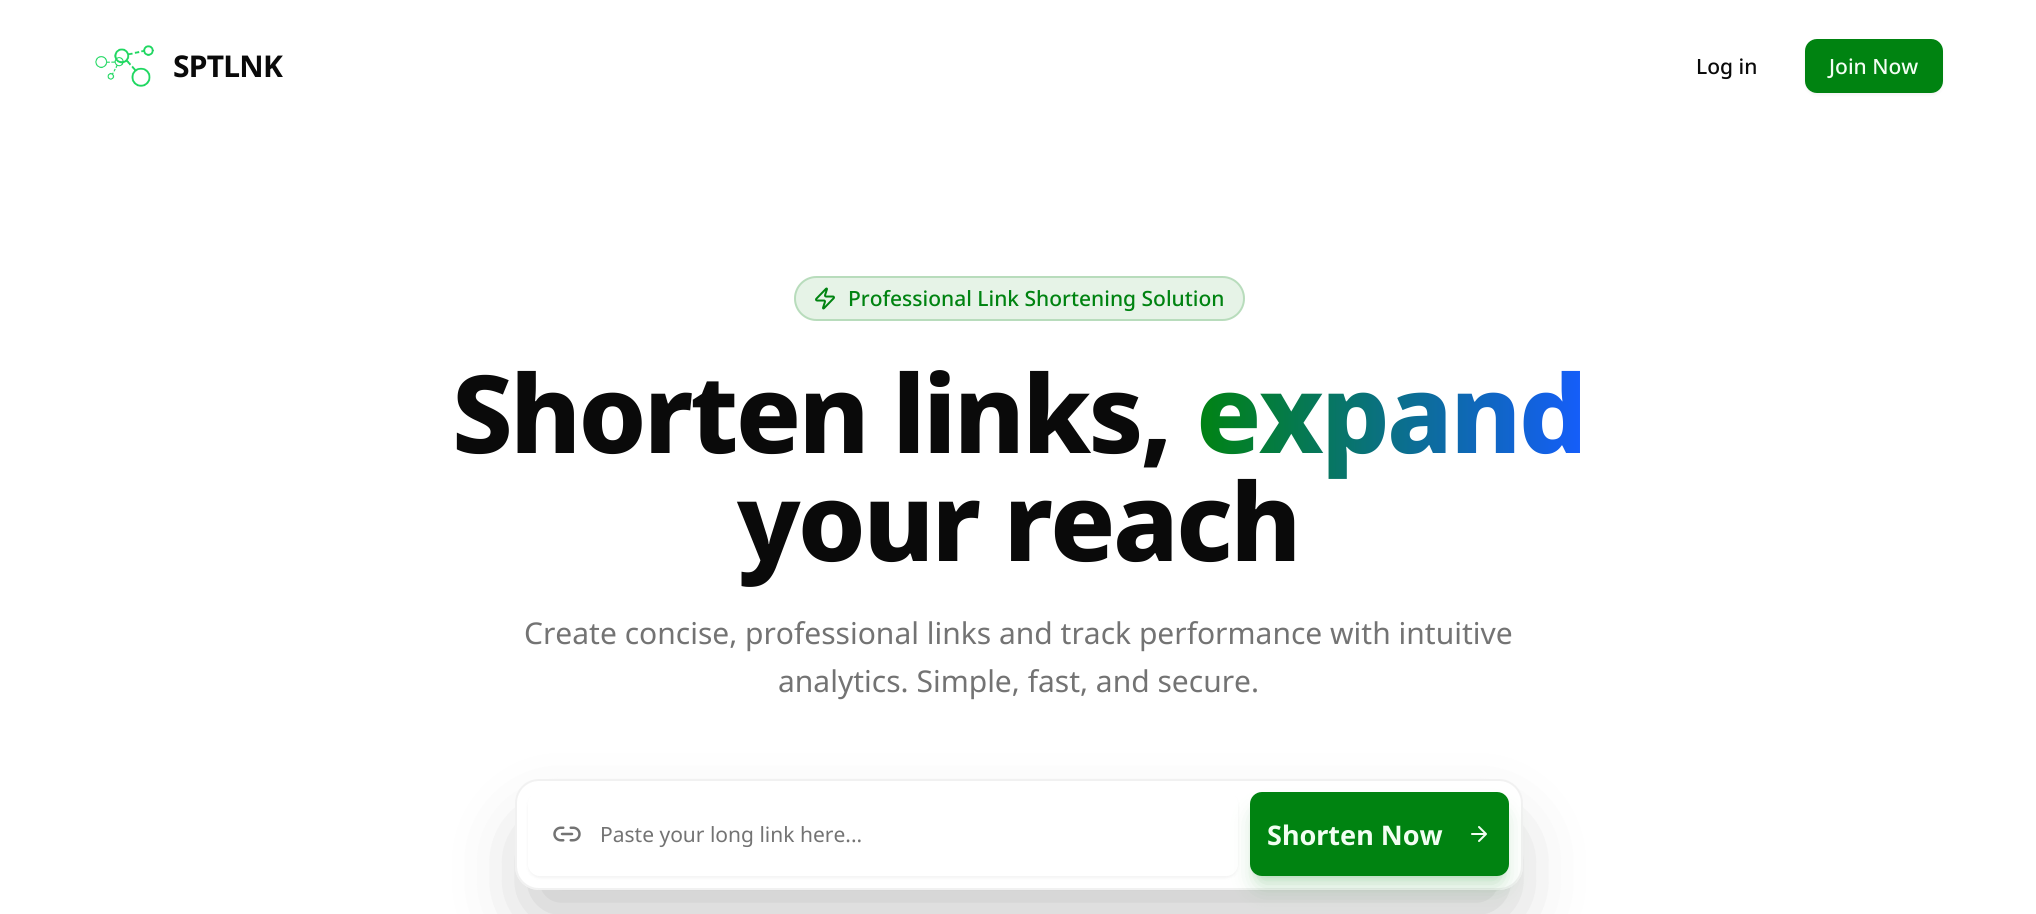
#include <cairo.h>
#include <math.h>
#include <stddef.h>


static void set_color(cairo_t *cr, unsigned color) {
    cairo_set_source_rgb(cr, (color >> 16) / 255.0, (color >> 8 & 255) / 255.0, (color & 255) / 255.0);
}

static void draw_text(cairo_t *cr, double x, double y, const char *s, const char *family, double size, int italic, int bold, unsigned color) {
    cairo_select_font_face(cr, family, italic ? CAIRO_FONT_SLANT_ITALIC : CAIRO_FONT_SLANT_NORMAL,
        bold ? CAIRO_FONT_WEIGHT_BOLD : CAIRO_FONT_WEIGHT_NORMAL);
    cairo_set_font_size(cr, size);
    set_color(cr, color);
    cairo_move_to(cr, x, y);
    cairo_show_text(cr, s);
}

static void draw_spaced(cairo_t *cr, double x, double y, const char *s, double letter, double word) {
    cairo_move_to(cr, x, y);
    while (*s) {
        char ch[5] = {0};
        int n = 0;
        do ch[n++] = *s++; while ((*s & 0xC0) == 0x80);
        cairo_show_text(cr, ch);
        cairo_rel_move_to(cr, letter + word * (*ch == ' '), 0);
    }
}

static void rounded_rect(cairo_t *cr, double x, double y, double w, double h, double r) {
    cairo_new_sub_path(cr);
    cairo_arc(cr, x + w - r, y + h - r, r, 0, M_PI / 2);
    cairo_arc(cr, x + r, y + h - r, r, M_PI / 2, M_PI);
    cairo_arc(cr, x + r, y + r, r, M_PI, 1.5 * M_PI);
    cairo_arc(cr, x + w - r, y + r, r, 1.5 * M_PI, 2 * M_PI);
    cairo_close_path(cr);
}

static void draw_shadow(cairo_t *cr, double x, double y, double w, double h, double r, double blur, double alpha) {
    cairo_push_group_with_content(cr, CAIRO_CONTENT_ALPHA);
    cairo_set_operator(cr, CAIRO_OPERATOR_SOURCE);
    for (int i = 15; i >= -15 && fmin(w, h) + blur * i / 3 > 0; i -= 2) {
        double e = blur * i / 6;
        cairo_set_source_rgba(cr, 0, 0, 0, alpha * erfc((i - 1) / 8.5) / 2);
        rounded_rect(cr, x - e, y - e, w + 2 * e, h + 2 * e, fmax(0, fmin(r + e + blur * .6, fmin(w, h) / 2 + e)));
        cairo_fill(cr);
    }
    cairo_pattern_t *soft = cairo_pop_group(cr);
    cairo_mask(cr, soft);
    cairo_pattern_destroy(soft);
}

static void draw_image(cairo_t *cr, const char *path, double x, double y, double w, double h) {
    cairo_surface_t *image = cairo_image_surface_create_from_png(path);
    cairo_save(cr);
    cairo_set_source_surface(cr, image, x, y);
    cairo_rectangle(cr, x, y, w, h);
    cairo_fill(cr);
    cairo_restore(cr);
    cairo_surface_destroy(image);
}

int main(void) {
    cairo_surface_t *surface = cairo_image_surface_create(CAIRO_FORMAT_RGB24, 2036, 914);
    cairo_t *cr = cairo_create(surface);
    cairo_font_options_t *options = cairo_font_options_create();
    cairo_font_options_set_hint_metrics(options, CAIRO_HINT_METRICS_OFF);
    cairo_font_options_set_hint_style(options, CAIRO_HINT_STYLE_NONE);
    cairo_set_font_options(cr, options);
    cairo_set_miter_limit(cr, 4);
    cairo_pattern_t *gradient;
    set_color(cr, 0xFFFFFF);
    cairo_paint(cr);
    draw_image(cr, "assets/img1.png", 95, 45, 59, 42);
    cairo_select_font_face(cr, "Noto Sans", CAIRO_FONT_SLANT_NORMAL, CAIRO_FONT_WEIGHT_BOLD);
    cairo_set_font_size(cr, 30);
    set_color(cr, 0x0A0A0A);
    draw_spaced(cr, 173, 77, "SPTLNK", -0.75, 0);
    draw_text(cr, 1696, 74, "Log in", "Noto Sans Medium", 21, 0, 0, 0x0A0A0A);
    set_color(cr, 0x000000);
    draw_shadow(cr, 1805, 41, 138, 54, 12, 1.5, 0.05);
    set_color(cr, 0x008311);
    rounded_rect(cr, 1805, 39, 138, 54, 12);
    cairo_fill(cr);
    draw_text(cr, 1829, 74, "Join Now", "Noto Sans Medium", 21, 0, 0, 0xF2FEF2);
    set_color(cr, 0xE6F3E7);
    rounded_rect(cr, 794, 276, 451, 45, 22.5);
    cairo_fill(cr);
    rounded_rect(cr, 795, 277, 449, 43, 21.5);
    cairo_set_source_rgba(cr, 0, 0.514, 0.067, 0.2);
    cairo_stroke(cr);
    draw_image(cr, "assets/img2.png", 815, 287, 20, 23);
    draw_text(cr, 848, 306, "Professional Link Shortening Solution", "Noto Sans Medium", 21, 0, 0, 0x008311);
    cairo_select_font_face(cr, "Noto Sans ExtraBold", CAIRO_FONT_SLANT_NORMAL, CAIRO_FONT_WEIGHT_NORMAL);
    cairo_set_font_size(cr, 108);
    set_color(cr, 0x0A0A0A);
    draw_spaced(cr, 452, 453, "Shorten links,", -2.75, 0);
    gradient = cairo_pattern_create_linear(1196, 411, 1585, 411);
    cairo_pattern_add_color_stop_rgba(gradient, 0, 0, 0.514, 0.067, 1);
    cairo_pattern_add_color_stop_rgba(gradient, 1, 0.082, 0.365, 0.988, 1);
    cairo_set_source(cr, gradient);
    cairo_pattern_destroy(gradient);
    draw_spaced(cr, 1196, 453, "expand", -2.75, 0);
    set_color(cr, 0x0A0A0A);
    draw_spaced(cr, 737, 561, "your reach", -2.75, 0);
    draw_text(cr, 524, 644, "Create concise, professional links and track performance with intuitive", "Noto Sans", 30, 0, 0, 0x737373);
    draw_text(cr, 778, 692, "analytics. Simple, fast, and secure.", "Noto Sans", 30, 0, 0, 0x737373);
    set_color(cr, 0x000000);
    draw_shadow(cr, 533, 834, 972, 75, 6, 37.5, 0.25);
    set_color(cr, 0xFFFFFF);
    rounded_rect(cr, 515, 779, 1008, 111, 24);
    cairo_fill(cr);
    rounded_rect(cr, 516, 780, 1006, 109, 23);
    cairo_set_source_rgba(cr, 0.898, 0.898, 0.898, 0.5);
    cairo_stroke(cr);
    cairo_save(cr);
    cairo_set_fill_rule(cr, CAIRO_FILL_RULE_EVEN_ODD);
    cairo_new_path(cr);
    cairo_move_to(cr, 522, 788);
    cairo_line_to(cr, 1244, 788);
    cairo_line_to(cr, 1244, 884);
    cairo_line_to(cr, 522, 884);
    cairo_close_path(cr);
    cairo_move_to(cr, 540, 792);
    cairo_line_to(cr, 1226, 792);
    cairo_curve_to(cr, 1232.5, 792, 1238, 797.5, 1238, 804);
    cairo_line_to(cr, 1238, 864);
    cairo_curve_to(cr, 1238, 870.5, 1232.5, 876, 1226, 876);
    cairo_line_to(cr, 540, 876);
    cairo_curve_to(cr, 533.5, 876, 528, 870.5, 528, 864);
    cairo_line_to(cr, 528, 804);
    cairo_curve_to(cr, 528, 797.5, 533.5, 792, 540, 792);
    cairo_close_path(cr);
    cairo_clip(cr);
    set_color(cr, 0x000000);
    draw_shadow(cr, 528, 794, 710, 84, 12, 1.5, 0.05);
    cairo_restore(cr);
    draw_image(cr, "assets/img3.png", 553, 826, 28, 16);
    draw_text(cr, 600, 842, "Paste your long link here...", "Noto Sans", 21, 0, 0, 0x737373);
    set_color(cr, 0x008311);
    draw_shadow(cr, 1256, 804, 247, 72, 6, 4.5, 0.2);
    draw_shadow(cr, 1254, 812, 251, 75, 8, 11, 0.2);
    set_color(cr, 0x008311);
    rounded_rect(cr, 1250, 792, 259, 84, 12);
    cairo_fill(cr);
    draw_text(cr, 1267, 845, "Shorten Now", "Noto Sans", 27, 0, 1, 0xF2FEF2);
    cairo_new_path(cr);
    cairo_move_to(cr, 1472, 834);
    cairo_line_to(cr, 1486, 834);
    cairo_move_to(cr, 1479, 827);
    cairo_line_to(cr, 1486, 834);
    cairo_line_to(cr, 1479, 841);
    cairo_set_line_cap(cr, CAIRO_LINE_CAP_ROUND);
    cairo_set_line_join(cr, CAIRO_LINE_JOIN_ROUND);
    cairo_stroke(cr);
    cairo_surface_write_to_png(surface, "output.png");
    cairo_font_options_destroy(options);
    cairo_destroy(cr);
    cairo_surface_destroy(surface);
    return 0;
}
